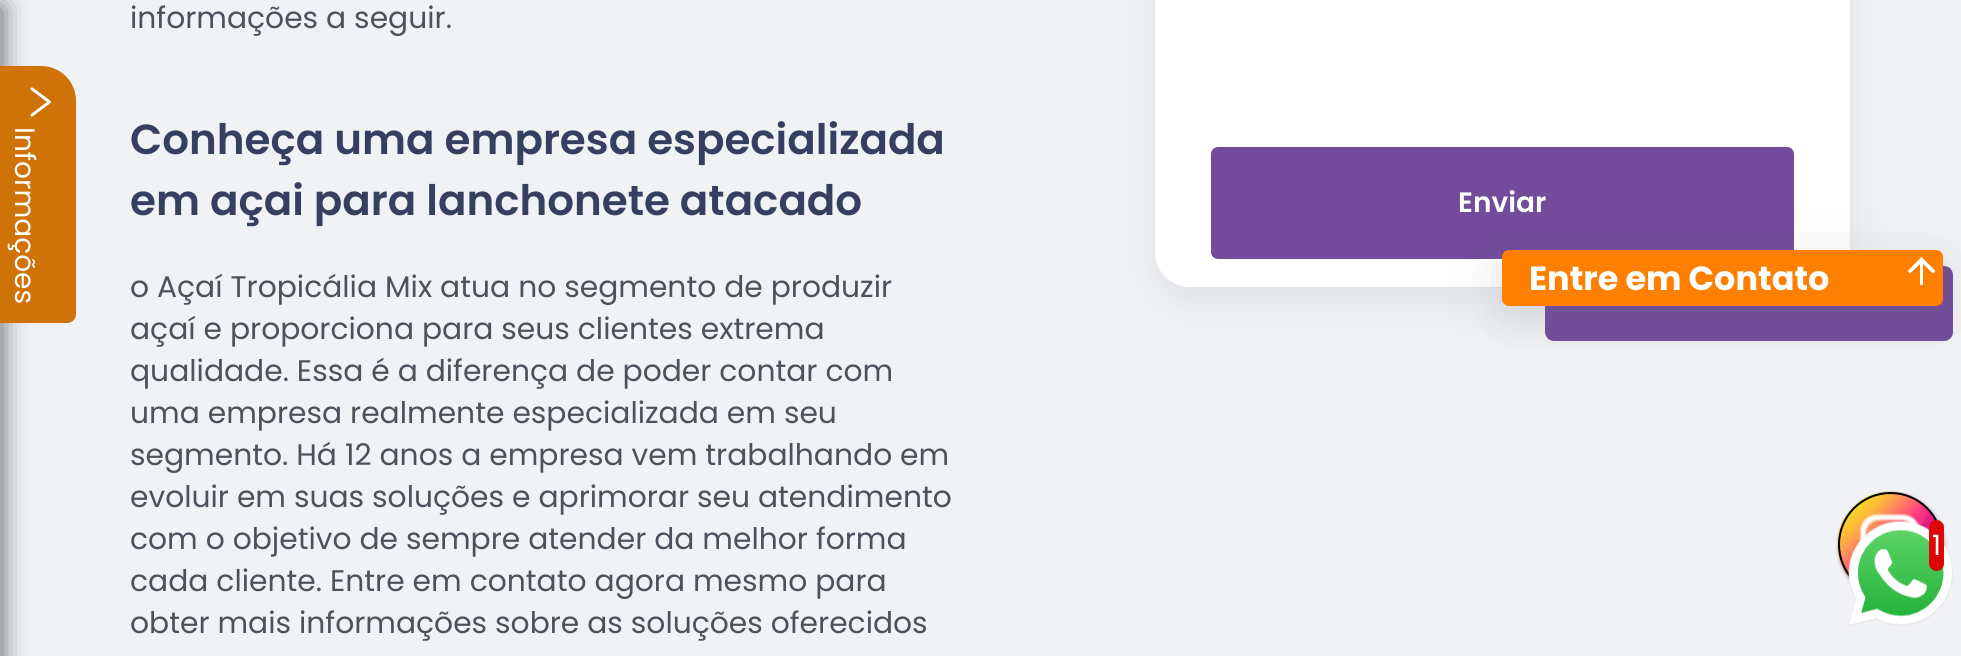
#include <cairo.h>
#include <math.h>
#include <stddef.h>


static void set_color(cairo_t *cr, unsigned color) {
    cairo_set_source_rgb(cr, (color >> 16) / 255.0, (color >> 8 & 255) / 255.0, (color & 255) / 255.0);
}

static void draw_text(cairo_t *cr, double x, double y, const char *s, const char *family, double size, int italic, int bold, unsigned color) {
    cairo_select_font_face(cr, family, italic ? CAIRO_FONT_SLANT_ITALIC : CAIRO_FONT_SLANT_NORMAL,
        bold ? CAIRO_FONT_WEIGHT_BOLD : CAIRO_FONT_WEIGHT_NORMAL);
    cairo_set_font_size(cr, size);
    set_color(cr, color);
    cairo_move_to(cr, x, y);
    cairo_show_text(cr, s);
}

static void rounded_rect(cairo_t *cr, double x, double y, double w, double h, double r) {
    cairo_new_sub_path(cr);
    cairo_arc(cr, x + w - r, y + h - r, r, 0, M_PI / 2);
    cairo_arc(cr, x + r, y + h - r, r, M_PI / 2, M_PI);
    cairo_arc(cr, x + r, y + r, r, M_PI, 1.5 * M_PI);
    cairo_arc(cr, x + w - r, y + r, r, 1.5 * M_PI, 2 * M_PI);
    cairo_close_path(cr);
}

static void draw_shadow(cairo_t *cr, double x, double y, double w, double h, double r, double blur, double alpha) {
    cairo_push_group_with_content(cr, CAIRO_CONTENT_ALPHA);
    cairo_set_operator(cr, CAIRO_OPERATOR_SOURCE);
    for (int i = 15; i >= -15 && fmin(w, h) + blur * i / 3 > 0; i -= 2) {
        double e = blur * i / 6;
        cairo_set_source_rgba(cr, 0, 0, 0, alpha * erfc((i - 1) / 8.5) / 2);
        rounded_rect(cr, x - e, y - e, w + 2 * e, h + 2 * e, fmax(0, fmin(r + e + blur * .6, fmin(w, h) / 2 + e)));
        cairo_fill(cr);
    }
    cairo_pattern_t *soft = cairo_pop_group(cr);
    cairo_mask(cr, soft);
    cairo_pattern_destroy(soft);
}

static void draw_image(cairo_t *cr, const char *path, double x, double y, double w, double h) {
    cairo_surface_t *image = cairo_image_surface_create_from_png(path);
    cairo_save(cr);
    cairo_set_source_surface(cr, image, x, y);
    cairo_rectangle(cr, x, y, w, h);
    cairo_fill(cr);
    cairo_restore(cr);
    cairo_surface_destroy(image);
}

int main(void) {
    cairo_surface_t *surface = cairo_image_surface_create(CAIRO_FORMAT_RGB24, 1961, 656);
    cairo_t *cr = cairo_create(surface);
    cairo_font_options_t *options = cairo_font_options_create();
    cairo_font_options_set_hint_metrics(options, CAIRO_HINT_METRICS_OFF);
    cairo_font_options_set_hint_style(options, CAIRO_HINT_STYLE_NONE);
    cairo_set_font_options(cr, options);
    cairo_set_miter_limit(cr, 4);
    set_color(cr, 0xF0F2F5);
    cairo_paint(cr);
    set_color(cr, 0x000000);
    draw_shadow(cr, -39, 7, 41, 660, 0, 13, 0.6);
    draw_text(cr, 130, 28, "informações a seguir.", "Poppins", 29.75, 0, 0, 0x4D515C);
    draw_text(cr, 130, 154, "Conheça uma empresa especializada", "Poppins SemiBold", 42, 0, 0, 0x363F5F);
    draw_text(cr, 130, 215, "em açai para lanchonete atacado", "Poppins SemiBold", 42, 0, 0, 0x363F5F);
    draw_text(cr, 130, 297, "o Açaí Tropicália Mix atua no segmento de produzir", "Poppins", 29.75, 0, 0, 0x4D515C);
    draw_text(cr, 130, 339, "açaí e proporciona para seus clientes extrema", "Poppins", 29.75, 0, 0, 0x4D515C);
    draw_text(cr, 130, 381, "qualidade. Essa é a diferença de poder contar com", "Poppins", 29.75, 0, 0, 0x4D515C);
    draw_text(cr, 130, 423, "uma empresa realmente especializada em seu", "Poppins", 29.75, 0, 0, 0x4D515C);
    draw_text(cr, 130, 465, "segmento. Há 12 anos a empresa vem trabalhando em", "Poppins", 29.75, 0, 0, 0x4D515C);
    draw_text(cr, 130, 507, "evoluir em suas soluções e aprimorar seu atendimento", "Poppins", 29.75, 0, 0, 0x4D515C);
    draw_text(cr, 130, 549, "com o objetivo de sempre atender da melhor forma", "Poppins", 29.75, 0, 0, 0x4D515C);
    draw_text(cr, 130, 591, "cada cliente. Entre em contato agora mesmo para", "Poppins", 29.75, 0, 0, 0x4D515C);
    draw_text(cr, 130, 633, "obter mais informações sobre as soluções oferecidos", "Poppins", 29.75, 0, 0, 0x4D515C);
    set_color(cr, 0x959DA5);
    draw_shadow(cr, 1155, -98, 695, 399, 35, 21, 0.2);
    set_color(cr, 0xFFFFFF);
    rounded_rect(cr, 1155, -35, 695, 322, 35);
    cairo_fill(cr);
    set_color(cr, 0x724B9B);
    rounded_rect(cr, 1211, 147, 583, 112, 7);
    cairo_fill(cr);
    draw_text(cr, 1458, 212, "Enviar", "Poppins SemiBold", 28, 0, 0, 0xFFFFFF);
    set_color(cr, 0xCF7207);
    cairo_new_path(cr);
    cairo_move_to(cr, 76, 101);
    cairo_line_to(cr, 76, 314);
    cairo_curve_to(cr, 76, 319, 72, 323, 67, 323);
    cairo_line_to(cr, -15, 323);
    cairo_line_to(cr, -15, 66);
    cairo_line_to(cr, 41, 66);
    cairo_curve_to(cr, 60, 66, 76, 81, 76, 101);
    cairo_close_path(cr);
    cairo_fill(cr);
    draw_image(cr, "assets/img1.png", 30, 87, 21, 30);
    cairo_save(cr);
    cairo_translate(cr, 15, 127);
    cairo_rotate(cr, 90 * M_PI / 180);
    draw_text(cr, 0, 0, "Informações", "Poppins", 28, 0, 0, 0xFFFFFF);
    cairo_restore(cr);
    set_color(cr, 0x724B9B);
    rounded_rect(cr, 1545, 266, 408, 75, 9);
    cairo_fill(cr);
    set_color(cr, 0x64646F);
    draw_shadow(cr, 1502, 263, 441, 56, 7, 25.5, 0.2);
    set_color(cr, 0xFF7F00);
    rounded_rect(cr, 1502, 250, 441, 56, 7);
    cairo_fill(cr);
    draw_text(cr, 1529, 290, "Entre em Contato", "Poppins", 33.5, 0, 1, 0xFFFFFF);
    cairo_new_path(cr);
    cairo_move_to(cr, 1907.5, 271);
    cairo_line_to(cr, 1910, 273.5);
    cairo_line_to(cr, 1920, 264);
    cairo_line_to(cr, 1920, 285);
    cairo_line_to(cr, 1923, 285);
    cairo_line_to(cr, 1923, 264);
    cairo_line_to(cr, 1933, 273.5);
    cairo_line_to(cr, 1935.5, 271);
    cairo_line_to(cr, 1921.5, 257);
    cairo_close_path(cr);
    cairo_fill(cr);
    set_color(cr, 0x888888);
    draw_shadow(cr, 1839, 494, 105, 105, 52.5, 2, 1);
    draw_image(cr, "assets/img3.png", 1837, 491, 101, 87);
    cairo_arc(cr, 1890.5, 544.5, 51.5, 0, 2 * M_PI);
    set_color(cr, 0x000000);
    cairo_stroke(cr);
    draw_image(cr, "assets/img2.png", 1848, 521, 105, 106);
    set_color(cr, 0xDD0505);
    rounded_rect(cr, 1929, 520, 15, 51, 7.5);
    cairo_fill(cr);
    draw_text(cr, 1932, 555, "1", "Poppins", 28, 0, 0, 0xFFFFFF);
    cairo_surface_write_to_png(surface, "output.png");
    cairo_font_options_destroy(options);
    cairo_destroy(cr);
    cairo_surface_destroy(surface);
    return 0;
}
